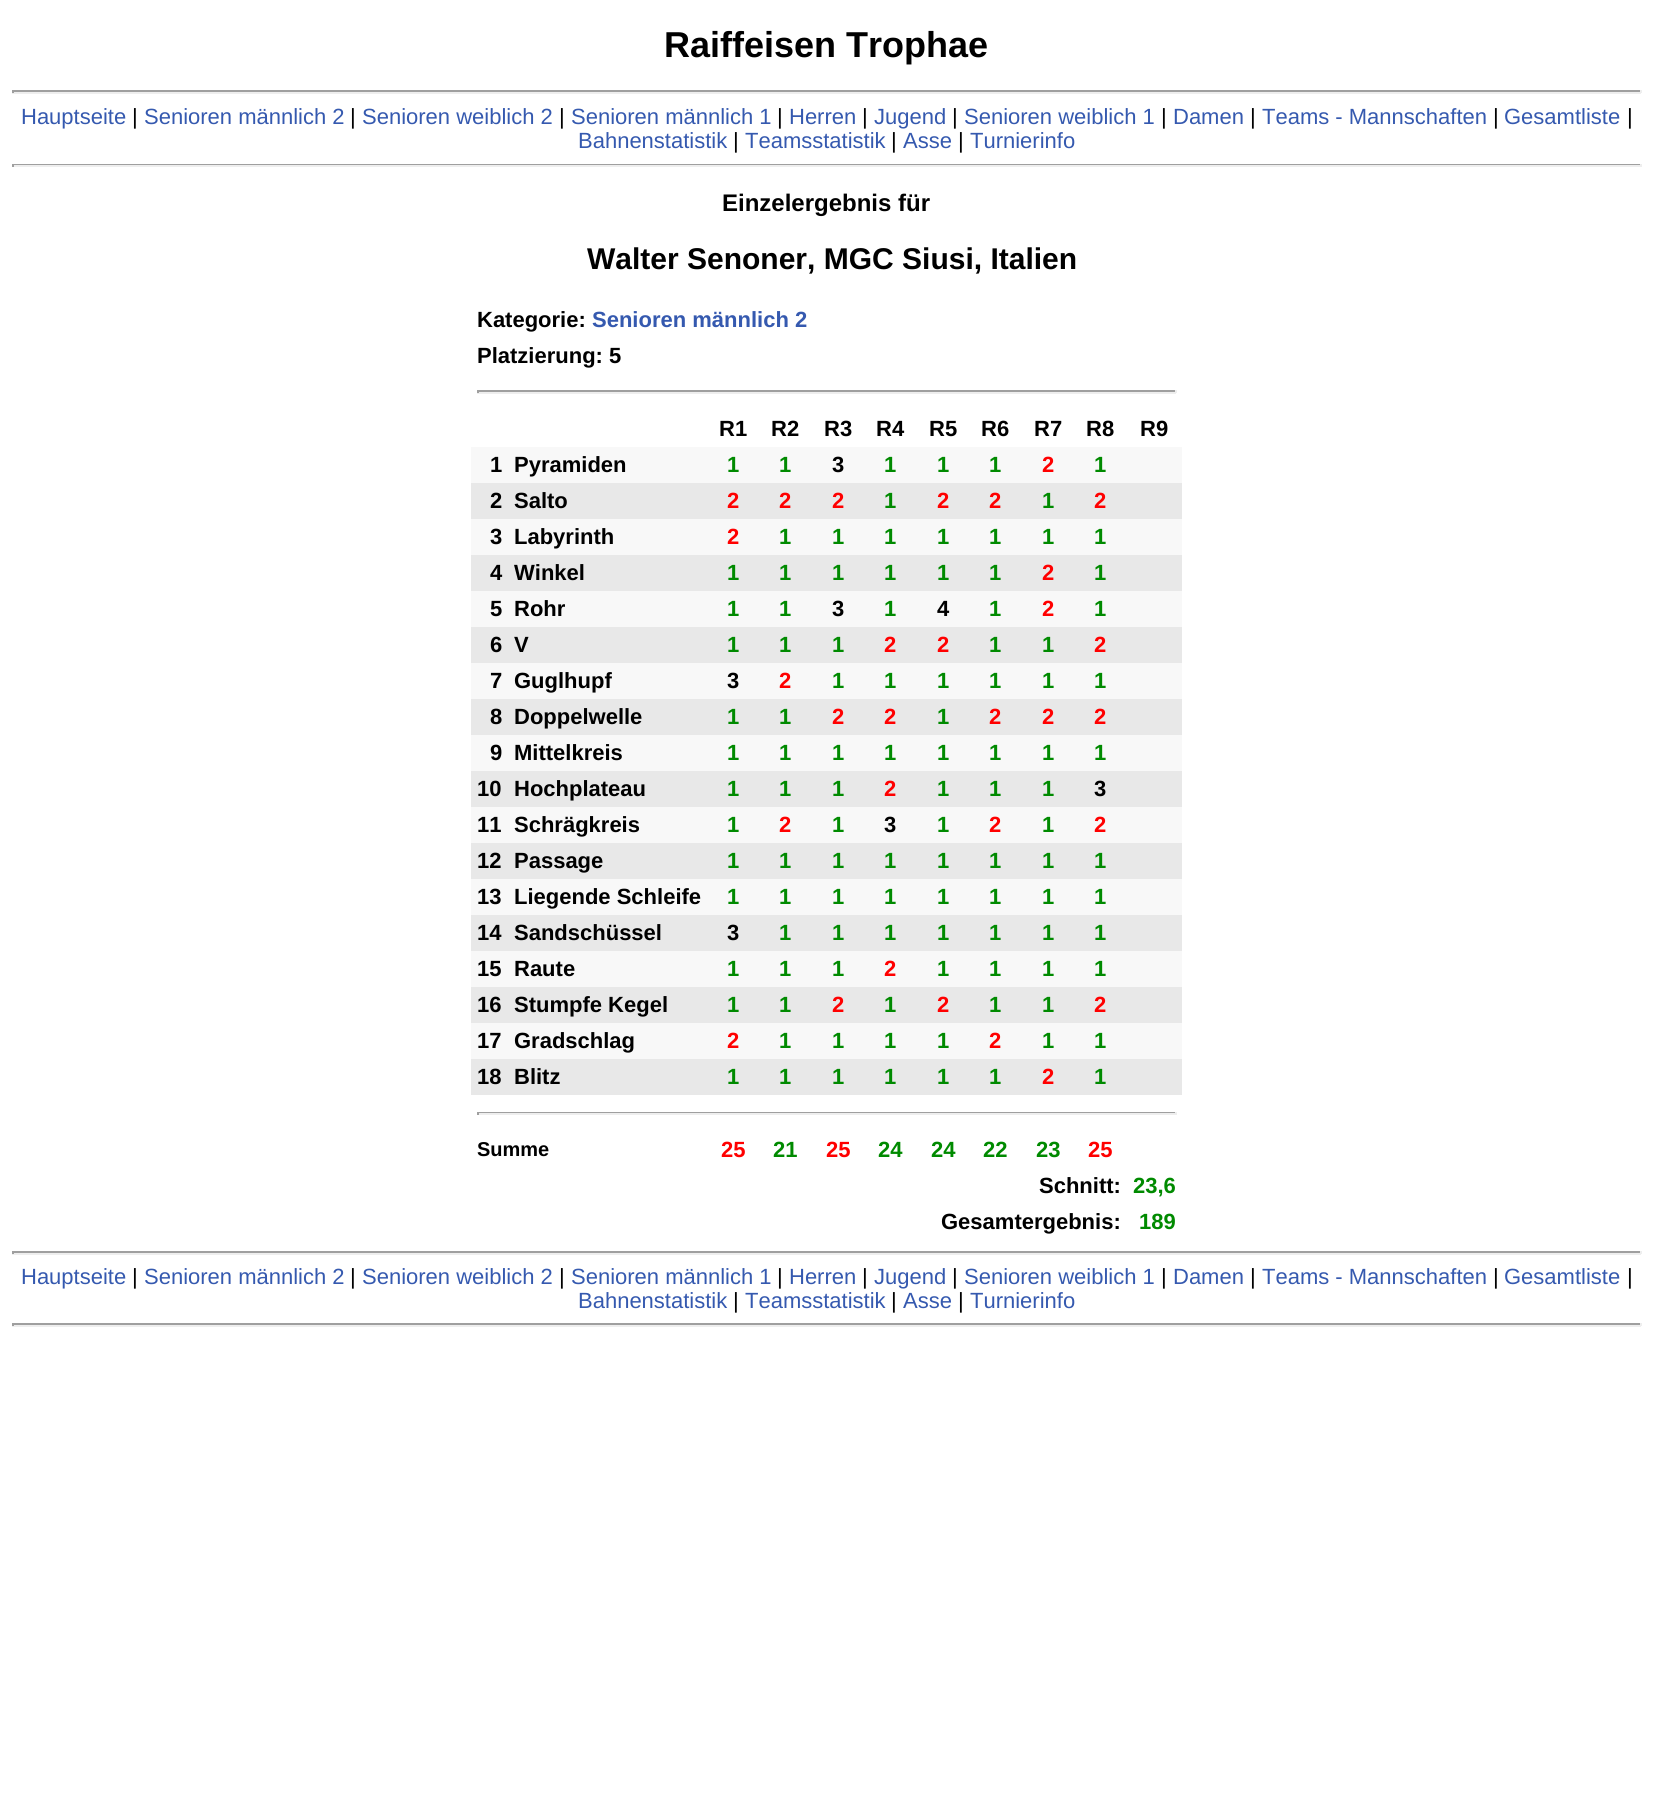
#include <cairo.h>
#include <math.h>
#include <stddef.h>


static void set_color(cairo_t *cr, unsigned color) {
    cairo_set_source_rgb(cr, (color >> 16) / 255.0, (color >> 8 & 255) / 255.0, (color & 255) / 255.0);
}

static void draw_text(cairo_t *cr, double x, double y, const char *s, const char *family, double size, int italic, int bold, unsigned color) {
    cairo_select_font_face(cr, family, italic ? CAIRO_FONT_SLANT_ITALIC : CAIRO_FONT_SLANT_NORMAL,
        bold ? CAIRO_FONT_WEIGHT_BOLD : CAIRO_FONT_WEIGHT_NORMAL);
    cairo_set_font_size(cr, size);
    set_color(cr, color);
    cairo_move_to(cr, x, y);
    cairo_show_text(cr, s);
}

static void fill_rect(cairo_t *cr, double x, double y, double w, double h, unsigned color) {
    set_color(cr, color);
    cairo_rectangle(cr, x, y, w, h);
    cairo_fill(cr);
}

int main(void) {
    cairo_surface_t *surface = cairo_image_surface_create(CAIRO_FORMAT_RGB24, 1653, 1811);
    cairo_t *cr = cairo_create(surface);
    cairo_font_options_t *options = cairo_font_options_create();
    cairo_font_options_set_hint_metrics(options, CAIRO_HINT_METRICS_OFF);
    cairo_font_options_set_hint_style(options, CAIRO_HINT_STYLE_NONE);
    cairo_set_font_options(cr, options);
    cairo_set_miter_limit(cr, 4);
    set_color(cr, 0xFFFFFF);
    cairo_paint(cr);
    draw_text(cr, 664, 57, "Raiffeisen Trophae", "Liberation Sans", 36, 0, 1, 0x000000);
    fill_rect(cr, 12, 90, 1629, 2, 0x9F9F9F);
    fill_rect(cr, 1640, 90, 2, 3, 0xEEEEEE);
    fill_rect(cr, 12, 92, 1629, 2, 0xEEEEEE);
    fill_rect(cr, 12, 90, 2, 3, 0x9F9F9F);
    draw_text(cr, 21, 124, "Hauptseite", "Liberation Sans", 22, 0, 0, 0x3559AF);
    draw_text(cr, 132, 124, "|", "Liberation Sans", 22, 0, 0, 0x000000);
    draw_text(cr, 144, 124, "Senioren männlich 2", "Liberation Sans", 22, 0, 0, 0x3559AF);
    draw_text(cr, 350, 124, "|", "Liberation Sans", 22, 0, 0, 0x000000);
    draw_text(cr, 362, 124, "Senioren weiblich 2", "Liberation Sans", 22, 0, 0, 0x3559AF);
    draw_text(cr, 559, 124, "|", "Liberation Sans", 22, 0, 0, 0x000000);
    draw_text(cr, 571, 124, "Senioren männlich 1", "Liberation Sans", 22, 0, 0, 0x3559AF);
    draw_text(cr, 777, 124, "|", "Liberation Sans", 22, 0, 0, 0x000000);
    draw_text(cr, 789, 124, "Herren", "Liberation Sans", 22, 0, 0, 0x3559AF);
    draw_text(cr, 862, 124, "|", "Liberation Sans", 22, 0, 0, 0x000000);
    draw_text(cr, 874, 124, "Jugend", "Liberation Sans", 22, 0, 0, 0x3559AF);
    draw_text(cr, 952, 124, "|", "Liberation Sans", 22, 0, 0, 0x000000);
    draw_text(cr, 964, 124, "Senioren weiblich 1", "Liberation Sans", 22, 0, 0, 0x3559AF);
    draw_text(cr, 1161, 124, "|", "Liberation Sans", 22, 0, 0, 0x000000);
    draw_text(cr, 1173, 124, "Damen", "Liberation Sans", 22, 0, 0, 0x3559AF);
    draw_text(cr, 1250, 124, "|", "Liberation Sans", 22, 0, 0, 0x000000);
    draw_text(cr, 1262, 124, "Teams - Mannschaften", "Liberation Sans", 22, 0, 0, 0x3559AF);
    draw_text(cr, 1493, 124, "|", "Liberation Sans", 22, 0, 0, 0x000000);
    draw_text(cr, 1504, 124, "Gesamtliste", "Liberation Sans", 22, 0, 0, 0x3559AF);
    draw_text(cr, 1627, 124, "|", "Liberation Sans", 22, 0, 0, 0x000000);
    draw_text(cr, 578, 148, "Bahnenstatistik", "Liberation Sans", 22, 0, 0, 0x3559AF);
    draw_text(cr, 733, 148, "|", "Liberation Sans", 22, 0, 0, 0x000000);
    draw_text(cr, 745, 148, "Teamsstatistik", "Liberation Sans", 22, 0, 0, 0x3559AF);
    draw_text(cr, 891, 148, "|", "Liberation Sans", 22, 0, 0, 0x000000);
    draw_text(cr, 903, 148, "Asse", "Liberation Sans", 22, 0, 0, 0x3559AF);
    draw_text(cr, 958, 148, "|", "Liberation Sans", 22, 0, 0, 0x000000);
    draw_text(cr, 970, 148, "Turnierinfo", "Liberation Sans", 22, 0, 0, 0x3559AF);
    fill_rect(cr, 12, 164, 1629, 1, 0x9F9F9F);
    fill_rect(cr, 1640, 164, 2, 3, 0xEEEEEE);
    fill_rect(cr, 12, 165, 1629, 2, 0xEEEEEE);
    fill_rect(cr, 12, 164, 2, 3, 0x9F9F9F);
    draw_text(cr, 722, 211, "Einzelergebnis für", "Liberation Sans", 24, 0, 1, 0x000000);
    draw_text(cr, 587, 269, "Walter Senoner, MGC Siusi, Italien", "Liberation Sans", 30, 0, 1, 0x000000);
    draw_text(cr, 477, 327, "Kategorie:", "Liberation Sans", 22, 0, 1, 0x000000);
    draw_text(cr, 592, 327, "Senioren männlich 2", "Liberation Sans", 22, 0, 1, 0x3559AF);
    draw_text(cr, 477, 363, "Platzierung: 5", "Liberation Sans", 22, 0, 1, 0x000000);
    fill_rect(cr, 477, 390, 699, 2, 0x9F9F9F);
    fill_rect(cr, 1175, 390, 2, 3, 0xEEEEEE);
    fill_rect(cr, 477, 392, 699, 2, 0xEEEEEE);
    fill_rect(cr, 477, 390, 2, 3, 0x9F9F9F);
    draw_text(cr, 719, 436, "R1", "Liberation Sans", 22, 0, 1, 0x000000);
    draw_text(cr, 771, 436, "R2", "Liberation Sans", 22, 0, 1, 0x000000);
    draw_text(cr, 824, 436, "R3", "Liberation Sans", 22, 0, 1, 0x000000);
    draw_text(cr, 876, 436, "R4", "Liberation Sans", 22, 0, 1, 0x000000);
    draw_text(cr, 929, 436, "R5", "Liberation Sans", 22, 0, 1, 0x000000);
    draw_text(cr, 981, 436, "R6", "Liberation Sans", 22, 0, 1, 0x000000);
    draw_text(cr, 1034, 436, "R7", "Liberation Sans", 22, 0, 1, 0x000000);
    draw_text(cr, 1086, 436, "R8", "Liberation Sans", 22, 0, 1, 0x000000);
    draw_text(cr, 1140, 436, "R9", "Liberation Sans", 22, 0, 1, 0x000000);
    fill_rect(cr, 471, 447, 711, 36, 0xF8F8F8);
    draw_text(cr, 490, 472, "1", "Liberation Sans", 22, 0, 1, 0x000000);
    draw_text(cr, 514, 472, "Pyramiden", "Liberation Sans", 22, 0, 1, 0x000000);
    draw_text(cr, 727, 472, "1", "Liberation Sans", 22, 0, 1, 0x008A00);
    draw_text(cr, 779, 472, "1", "Liberation Sans", 22, 0, 1, 0x008A00);
    draw_text(cr, 832, 472, "3", "Liberation Sans", 22, 0, 1, 0x000000);
    draw_text(cr, 884, 472, "1", "Liberation Sans", 22, 0, 1, 0x008A00);
    draw_text(cr, 937, 472, "1", "Liberation Sans", 22, 0, 1, 0x008A00);
    draw_text(cr, 989, 472, "1", "Liberation Sans", 22, 0, 1, 0x008A00);
    draw_text(cr, 1042, 472, "2", "Liberation Sans", 22, 0, 1, 0xFF0000);
    draw_text(cr, 1094, 472, "1", "Liberation Sans", 22, 0, 1, 0x008A00);
    fill_rect(cr, 471, 483, 711, 36, 0xE8E8E8);
    draw_text(cr, 490, 508, "2", "Liberation Sans", 22, 0, 1, 0x000000);
    draw_text(cr, 514, 508, "Salto", "Liberation Sans", 22, 0, 1, 0x000000);
    draw_text(cr, 727, 508, "2", "Liberation Sans", 22, 0, 1, 0xFF0000);
    draw_text(cr, 779, 508, "2", "Liberation Sans", 22, 0, 1, 0xFF0000);
    draw_text(cr, 832, 508, "2", "Liberation Sans", 22, 0, 1, 0xFF0000);
    draw_text(cr, 884, 508, "1", "Liberation Sans", 22, 0, 1, 0x008A00);
    draw_text(cr, 937, 508, "2", "Liberation Sans", 22, 0, 1, 0xFF0000);
    draw_text(cr, 989, 508, "2", "Liberation Sans", 22, 0, 1, 0xFF0000);
    draw_text(cr, 1042, 508, "1", "Liberation Sans", 22, 0, 1, 0x008A00);
    draw_text(cr, 1094, 508, "2", "Liberation Sans", 22, 0, 1, 0xFF0000);
    fill_rect(cr, 471, 519, 711, 36, 0xF8F8F8);
    draw_text(cr, 490, 544, "3", "Liberation Sans", 22, 0, 1, 0x000000);
    draw_text(cr, 514, 544, "Labyrinth", "Liberation Sans", 22, 0, 1, 0x000000);
    draw_text(cr, 727, 544, "2", "Liberation Sans", 22, 0, 1, 0xFF0000);
    draw_text(cr, 779, 544, "1", "Liberation Sans", 22, 0, 1, 0x008A00);
    draw_text(cr, 832, 544, "1", "Liberation Sans", 22, 0, 1, 0x008A00);
    draw_text(cr, 884, 544, "1", "Liberation Sans", 22, 0, 1, 0x008A00);
    draw_text(cr, 937, 544, "1", "Liberation Sans", 22, 0, 1, 0x008A00);
    draw_text(cr, 989, 544, "1", "Liberation Sans", 22, 0, 1, 0x008A00);
    draw_text(cr, 1042, 544, "1", "Liberation Sans", 22, 0, 1, 0x008A00);
    draw_text(cr, 1094, 544, "1", "Liberation Sans", 22, 0, 1, 0x008A00);
    fill_rect(cr, 471, 555, 711, 36, 0xE8E8E8);
    draw_text(cr, 490, 580, "4", "Liberation Sans", 22, 0, 1, 0x000000);
    draw_text(cr, 514, 580, "Winkel", "Liberation Sans", 22, 0, 1, 0x000000);
    draw_text(cr, 727, 580, "1", "Liberation Sans", 22, 0, 1, 0x008A00);
    draw_text(cr, 779, 580, "1", "Liberation Sans", 22, 0, 1, 0x008A00);
    draw_text(cr, 832, 580, "1", "Liberation Sans", 22, 0, 1, 0x008A00);
    draw_text(cr, 884, 580, "1", "Liberation Sans", 22, 0, 1, 0x008A00);
    draw_text(cr, 937, 580, "1", "Liberation Sans", 22, 0, 1, 0x008A00);
    draw_text(cr, 989, 580, "1", "Liberation Sans", 22, 0, 1, 0x008A00);
    draw_text(cr, 1042, 580, "2", "Liberation Sans", 22, 0, 1, 0xFF0000);
    draw_text(cr, 1094, 580, "1", "Liberation Sans", 22, 0, 1, 0x008A00);
    fill_rect(cr, 471, 591, 711, 36, 0xF8F8F8);
    draw_text(cr, 490, 616, "5", "Liberation Sans", 22, 0, 1, 0x000000);
    draw_text(cr, 514, 616, "Rohr", "Liberation Sans", 22, 0, 1, 0x000000);
    draw_text(cr, 727, 616, "1", "Liberation Sans", 22, 0, 1, 0x008A00);
    draw_text(cr, 779, 616, "1", "Liberation Sans", 22, 0, 1, 0x008A00);
    draw_text(cr, 832, 616, "3", "Liberation Sans", 22, 0, 1, 0x000000);
    draw_text(cr, 884, 616, "1", "Liberation Sans", 22, 0, 1, 0x008A00);
    draw_text(cr, 937, 616, "4", "Liberation Sans", 22, 0, 1, 0x000000);
    draw_text(cr, 989, 616, "1", "Liberation Sans", 22, 0, 1, 0x008A00);
    draw_text(cr, 1042, 616, "2", "Liberation Sans", 22, 0, 1, 0xFF0000);
    draw_text(cr, 1094, 616, "1", "Liberation Sans", 22, 0, 1, 0x008A00);
    fill_rect(cr, 471, 627, 711, 36, 0xE8E8E8);
    draw_text(cr, 490, 652, "6", "Liberation Sans", 22, 0, 1, 0x000000);
    draw_text(cr, 514, 652, "V", "Liberation Sans", 22, 0, 1, 0x000000);
    draw_text(cr, 727, 652, "1", "Liberation Sans", 22, 0, 1, 0x008A00);
    draw_text(cr, 779, 652, "1", "Liberation Sans", 22, 0, 1, 0x008A00);
    draw_text(cr, 832, 652, "1", "Liberation Sans", 22, 0, 1, 0x008A00);
    draw_text(cr, 884, 652, "2", "Liberation Sans", 22, 0, 1, 0xFF0000);
    draw_text(cr, 937, 652, "2", "Liberation Sans", 22, 0, 1, 0xFF0000);
    draw_text(cr, 989, 652, "1", "Liberation Sans", 22, 0, 1, 0x008A00);
    draw_text(cr, 1042, 652, "1", "Liberation Sans", 22, 0, 1, 0x008A00);
    draw_text(cr, 1094, 652, "2", "Liberation Sans", 22, 0, 1, 0xFF0000);
    fill_rect(cr, 471, 663, 711, 36, 0xF8F8F8);
    draw_text(cr, 490, 688, "7", "Liberation Sans", 22, 0, 1, 0x000000);
    draw_text(cr, 514, 688, "Guglhupf", "Liberation Sans", 22, 0, 1, 0x000000);
    draw_text(cr, 727, 688, "3", "Liberation Sans", 22, 0, 1, 0x000000);
    draw_text(cr, 779, 688, "2", "Liberation Sans", 22, 0, 1, 0xFF0000);
    draw_text(cr, 832, 688, "1", "Liberation Sans", 22, 0, 1, 0x008A00);
    draw_text(cr, 884, 688, "1", "Liberation Sans", 22, 0, 1, 0x008A00);
    draw_text(cr, 937, 688, "1", "Liberation Sans", 22, 0, 1, 0x008A00);
    draw_text(cr, 989, 688, "1", "Liberation Sans", 22, 0, 1, 0x008A00);
    draw_text(cr, 1042, 688, "1", "Liberation Sans", 22, 0, 1, 0x008A00);
    draw_text(cr, 1094, 688, "1", "Liberation Sans", 22, 0, 1, 0x008A00);
    fill_rect(cr, 471, 699, 711, 36, 0xE8E8E8);
    draw_text(cr, 490, 724, "8", "Liberation Sans", 22, 0, 1, 0x000000);
    draw_text(cr, 514, 724, "Doppelwelle", "Liberation Sans", 22, 0, 1, 0x000000);
    draw_text(cr, 727, 724, "1", "Liberation Sans", 22, 0, 1, 0x008A00);
    draw_text(cr, 779, 724, "1", "Liberation Sans", 22, 0, 1, 0x008A00);
    draw_text(cr, 832, 724, "2", "Liberation Sans", 22, 0, 1, 0xFF0000);
    draw_text(cr, 884, 724, "2", "Liberation Sans", 22, 0, 1, 0xFF0000);
    draw_text(cr, 937, 724, "1", "Liberation Sans", 22, 0, 1, 0x008A00);
    draw_text(cr, 989, 724, "2", "Liberation Sans", 22, 0, 1, 0xFF0000);
    draw_text(cr, 1042, 724, "2", "Liberation Sans", 22, 0, 1, 0xFF0000);
    draw_text(cr, 1094, 724, "2", "Liberation Sans", 22, 0, 1, 0xFF0000);
    fill_rect(cr, 471, 735, 711, 36, 0xF8F8F8);
    draw_text(cr, 490, 760, "9", "Liberation Sans", 22, 0, 1, 0x000000);
    draw_text(cr, 514, 760, "Mittelkreis", "Liberation Sans", 22, 0, 1, 0x000000);
    draw_text(cr, 727, 760, "1", "Liberation Sans", 22, 0, 1, 0x008A00);
    draw_text(cr, 779, 760, "1", "Liberation Sans", 22, 0, 1, 0x008A00);
    draw_text(cr, 832, 760, "1", "Liberation Sans", 22, 0, 1, 0x008A00);
    draw_text(cr, 884, 760, "1", "Liberation Sans", 22, 0, 1, 0x008A00);
    draw_text(cr, 937, 760, "1", "Liberation Sans", 22, 0, 1, 0x008A00);
    draw_text(cr, 989, 760, "1", "Liberation Sans", 22, 0, 1, 0x008A00);
    draw_text(cr, 1042, 760, "1", "Liberation Sans", 22, 0, 1, 0x008A00);
    draw_text(cr, 1094, 760, "1", "Liberation Sans", 22, 0, 1, 0x008A00);
    fill_rect(cr, 471, 771, 711, 36, 0xE8E8E8);
    draw_text(cr, 477, 796, "10", "Liberation Sans", 22, 0, 1, 0x000000);
    draw_text(cr, 514, 796, "Hochplateau", "Liberation Sans", 22, 0, 1, 0x000000);
    draw_text(cr, 727, 796, "1", "Liberation Sans", 22, 0, 1, 0x008A00);
    draw_text(cr, 779, 796, "1", "Liberation Sans", 22, 0, 1, 0x008A00);
    draw_text(cr, 832, 796, "1", "Liberation Sans", 22, 0, 1, 0x008A00);
    draw_text(cr, 884, 796, "2", "Liberation Sans", 22, 0, 1, 0xFF0000);
    draw_text(cr, 937, 796, "1", "Liberation Sans", 22, 0, 1, 0x008A00);
    draw_text(cr, 989, 796, "1", "Liberation Sans", 22, 0, 1, 0x008A00);
    draw_text(cr, 1042, 796, "1", "Liberation Sans", 22, 0, 1, 0x008A00);
    draw_text(cr, 1094, 796, "3", "Liberation Sans", 22, 0, 1, 0x000000);
    fill_rect(cr, 471, 807, 711, 36, 0xF8F8F8);
    draw_text(cr, 477, 832, "11", "Liberation Sans", 22, 0, 1, 0x000000);
    draw_text(cr, 514, 832, "Schrägkreis", "Liberation Sans", 22, 0, 1, 0x000000);
    draw_text(cr, 727, 832, "1", "Liberation Sans", 22, 0, 1, 0x008A00);
    draw_text(cr, 779, 832, "2", "Liberation Sans", 22, 0, 1, 0xFF0000);
    draw_text(cr, 832, 832, "1", "Liberation Sans", 22, 0, 1, 0x008A00);
    draw_text(cr, 884, 832, "3", "Liberation Sans", 22, 0, 1, 0x000000);
    draw_text(cr, 937, 832, "1", "Liberation Sans", 22, 0, 1, 0x008A00);
    draw_text(cr, 989, 832, "2", "Liberation Sans", 22, 0, 1, 0xFF0000);
    draw_text(cr, 1042, 832, "1", "Liberation Sans", 22, 0, 1, 0x008A00);
    draw_text(cr, 1094, 832, "2", "Liberation Sans", 22, 0, 1, 0xFF0000);
    fill_rect(cr, 471, 843, 711, 36, 0xE8E8E8);
    draw_text(cr, 477, 868, "12", "Liberation Sans", 22, 0, 1, 0x000000);
    draw_text(cr, 514, 868, "Passage", "Liberation Sans", 22, 0, 1, 0x000000);
    draw_text(cr, 727, 868, "1", "Liberation Sans", 22, 0, 1, 0x008A00);
    draw_text(cr, 779, 868, "1", "Liberation Sans", 22, 0, 1, 0x008A00);
    draw_text(cr, 832, 868, "1", "Liberation Sans", 22, 0, 1, 0x008A00);
    draw_text(cr, 884, 868, "1", "Liberation Sans", 22, 0, 1, 0x008A00);
    draw_text(cr, 937, 868, "1", "Liberation Sans", 22, 0, 1, 0x008A00);
    draw_text(cr, 989, 868, "1", "Liberation Sans", 22, 0, 1, 0x008A00);
    draw_text(cr, 1042, 868, "1", "Liberation Sans", 22, 0, 1, 0x008A00);
    draw_text(cr, 1094, 868, "1", "Liberation Sans", 22, 0, 1, 0x008A00);
    fill_rect(cr, 471, 879, 711, 36, 0xF8F8F8);
    draw_text(cr, 477, 904, "13", "Liberation Sans", 22, 0, 1, 0x000000);
    draw_text(cr, 514, 904, "Liegende Schleife", "Liberation Sans", 22, 0, 1, 0x000000);
    draw_text(cr, 727, 904, "1", "Liberation Sans", 22, 0, 1, 0x008A00);
    draw_text(cr, 779, 904, "1", "Liberation Sans", 22, 0, 1, 0x008A00);
    draw_text(cr, 832, 904, "1", "Liberation Sans", 22, 0, 1, 0x008A00);
    draw_text(cr, 884, 904, "1", "Liberation Sans", 22, 0, 1, 0x008A00);
    draw_text(cr, 937, 904, "1", "Liberation Sans", 22, 0, 1, 0x008A00);
    draw_text(cr, 989, 904, "1", "Liberation Sans", 22, 0, 1, 0x008A00);
    draw_text(cr, 1042, 904, "1", "Liberation Sans", 22, 0, 1, 0x008A00);
    draw_text(cr, 1094, 904, "1", "Liberation Sans", 22, 0, 1, 0x008A00);
    fill_rect(cr, 471, 915, 711, 36, 0xE8E8E8);
    draw_text(cr, 477, 940, "14", "Liberation Sans", 22, 0, 1, 0x000000);
    draw_text(cr, 514, 940, "Sandschüssel", "Liberation Sans", 22, 0, 1, 0x000000);
    draw_text(cr, 727, 940, "3", "Liberation Sans", 22, 0, 1, 0x000000);
    draw_text(cr, 779, 940, "1", "Liberation Sans", 22, 0, 1, 0x008A00);
    draw_text(cr, 832, 940, "1", "Liberation Sans", 22, 0, 1, 0x008A00);
    draw_text(cr, 884, 940, "1", "Liberation Sans", 22, 0, 1, 0x008A00);
    draw_text(cr, 937, 940, "1", "Liberation Sans", 22, 0, 1, 0x008A00);
    draw_text(cr, 989, 940, "1", "Liberation Sans", 22, 0, 1, 0x008A00);
    draw_text(cr, 1042, 940, "1", "Liberation Sans", 22, 0, 1, 0x008A00);
    draw_text(cr, 1094, 940, "1", "Liberation Sans", 22, 0, 1, 0x008A00);
    fill_rect(cr, 471, 951, 711, 36, 0xF8F8F8);
    draw_text(cr, 477, 976, "15", "Liberation Sans", 22, 0, 1, 0x000000);
    draw_text(cr, 514, 976, "Raute", "Liberation Sans", 22, 0, 1, 0x000000);
    draw_text(cr, 727, 976, "1", "Liberation Sans", 22, 0, 1, 0x008A00);
    draw_text(cr, 779, 976, "1", "Liberation Sans", 22, 0, 1, 0x008A00);
    draw_text(cr, 832, 976, "1", "Liberation Sans", 22, 0, 1, 0x008A00);
    draw_text(cr, 884, 976, "2", "Liberation Sans", 22, 0, 1, 0xFF0000);
    draw_text(cr, 937, 976, "1", "Liberation Sans", 22, 0, 1, 0x008A00);
    draw_text(cr, 989, 976, "1", "Liberation Sans", 22, 0, 1, 0x008A00);
    draw_text(cr, 1042, 976, "1", "Liberation Sans", 22, 0, 1, 0x008A00);
    draw_text(cr, 1094, 976, "1", "Liberation Sans", 22, 0, 1, 0x008A00);
    fill_rect(cr, 471, 987, 711, 36, 0xE8E8E8);
    draw_text(cr, 477, 1012, "16", "Liberation Sans", 22, 0, 1, 0x000000);
    draw_text(cr, 514, 1012, "Stumpfe Kegel", "Liberation Sans", 22, 0, 1, 0x000000);
    draw_text(cr, 727, 1012, "1", "Liberation Sans", 22, 0, 1, 0x008A00);
    draw_text(cr, 779, 1012, "1", "Liberation Sans", 22, 0, 1, 0x008A00);
    draw_text(cr, 832, 1012, "2", "Liberation Sans", 22, 0, 1, 0xFF0000);
    draw_text(cr, 884, 1012, "1", "Liberation Sans", 22, 0, 1, 0x008A00);
    draw_text(cr, 937, 1012, "2", "Liberation Sans", 22, 0, 1, 0xFF0000);
    draw_text(cr, 989, 1012, "1", "Liberation Sans", 22, 0, 1, 0x008A00);
    draw_text(cr, 1042, 1012, "1", "Liberation Sans", 22, 0, 1, 0x008A00);
    draw_text(cr, 1094, 1012, "2", "Liberation Sans", 22, 0, 1, 0xFF0000);
    fill_rect(cr, 471, 1023, 711, 36, 0xF8F8F8);
    draw_text(cr, 477, 1048, "17", "Liberation Sans", 22, 0, 1, 0x000000);
    draw_text(cr, 514, 1048, "Gradschlag", "Liberation Sans", 22, 0, 1, 0x000000);
    draw_text(cr, 727, 1048, "2", "Liberation Sans", 22, 0, 1, 0xFF0000);
    draw_text(cr, 779, 1048, "1", "Liberation Sans", 22, 0, 1, 0x008A00);
    draw_text(cr, 832, 1048, "1", "Liberation Sans", 22, 0, 1, 0x008A00);
    draw_text(cr, 884, 1048, "1", "Liberation Sans", 22, 0, 1, 0x008A00);
    draw_text(cr, 937, 1048, "1", "Liberation Sans", 22, 0, 1, 0x008A00);
    draw_text(cr, 989, 1048, "2", "Liberation Sans", 22, 0, 1, 0xFF0000);
    draw_text(cr, 1042, 1048, "1", "Liberation Sans", 22, 0, 1, 0x008A00);
    draw_text(cr, 1094, 1048, "1", "Liberation Sans", 22, 0, 1, 0x008A00);
    fill_rect(cr, 471, 1059, 711, 36, 0xE8E8E8);
    draw_text(cr, 477, 1084, "18", "Liberation Sans", 22, 0, 1, 0x000000);
    draw_text(cr, 514, 1084, "Blitz", "Liberation Sans", 22, 0, 1, 0x000000);
    draw_text(cr, 727, 1084, "1", "Liberation Sans", 22, 0, 1, 0x008A00);
    draw_text(cr, 779, 1084, "1", "Liberation Sans", 22, 0, 1, 0x008A00);
    draw_text(cr, 832, 1084, "1", "Liberation Sans", 22, 0, 1, 0x008A00);
    draw_text(cr, 884, 1084, "1", "Liberation Sans", 22, 0, 1, 0x008A00);
    draw_text(cr, 937, 1084, "1", "Liberation Sans", 22, 0, 1, 0x008A00);
    draw_text(cr, 989, 1084, "1", "Liberation Sans", 22, 0, 1, 0x008A00);
    draw_text(cr, 1042, 1084, "2", "Liberation Sans", 22, 0, 1, 0xFF0000);
    draw_text(cr, 1094, 1084, "1", "Liberation Sans", 22, 0, 1, 0x008A00);
    fill_rect(cr, 477, 1112, 699, 1, 0x9F9F9F);
    fill_rect(cr, 1175, 1112, 2, 3, 0xEEEEEE);
    fill_rect(cr, 477, 1113, 699, 2, 0xEEEEEE);
    fill_rect(cr, 477, 1112, 2, 3, 0x9F9F9F);
    draw_text(cr, 477, 1156, "Summe", "Liberation Sans", 20, 0, 1, 0x000000);
    draw_text(cr, 721, 1157, "25", "Liberation Sans", 22, 0, 1, 0xFF0000);
    draw_text(cr, 773, 1157, "21", "Liberation Sans", 22, 0, 1, 0x008A00);
    draw_text(cr, 826, 1157, "25", "Liberation Sans", 22, 0, 1, 0xFF0000);
    draw_text(cr, 878, 1157, "24", "Liberation Sans", 22, 0, 1, 0x008A00);
    draw_text(cr, 931, 1157, "24", "Liberation Sans", 22, 0, 1, 0x008A00);
    draw_text(cr, 983, 1157, "22", "Liberation Sans", 22, 0, 1, 0x008A00);
    draw_text(cr, 1036, 1157, "23", "Liberation Sans", 22, 0, 1, 0x008A00);
    draw_text(cr, 1088, 1157, "25", "Liberation Sans", 22, 0, 1, 0xFF0000);
    draw_text(cr, 1039, 1193, "Schnitt:", "Liberation Sans", 22, 0, 1, 0x000000);
    draw_text(cr, 1133, 1193, "23,6", "Liberation Sans", 22, 0, 1, 0x008A00);
    draw_text(cr, 941, 1229, "Gesamtergebnis:", "Liberation Sans", 22, 0, 1, 0x000000);
    draw_text(cr, 1139, 1229, "189", "Liberation Sans", 22, 0, 1, 0x008A00);
    fill_rect(cr, 12, 1251, 1629, 2, 0x9F9F9F);
    fill_rect(cr, 1640, 1251, 2, 3, 0xEEEEEE);
    fill_rect(cr, 12, 1253, 1629, 2, 0xEEEEEE);
    fill_rect(cr, 12, 1251, 2, 3, 0x9F9F9F);
    draw_text(cr, 21, 1284, "Hauptseite", "Liberation Sans", 22, 0, 0, 0x3559AF);
    draw_text(cr, 132, 1284, "|", "Liberation Sans", 22, 0, 0, 0x000000);
    draw_text(cr, 144, 1284, "Senioren männlich 2", "Liberation Sans", 22, 0, 0, 0x3559AF);
    draw_text(cr, 350, 1284, "|", "Liberation Sans", 22, 0, 0, 0x000000);
    draw_text(cr, 362, 1284, "Senioren weiblich 2", "Liberation Sans", 22, 0, 0, 0x3559AF);
    draw_text(cr, 559, 1284, "|", "Liberation Sans", 22, 0, 0, 0x000000);
    draw_text(cr, 571, 1284, "Senioren männlich 1", "Liberation Sans", 22, 0, 0, 0x3559AF);
    draw_text(cr, 777, 1284, "|", "Liberation Sans", 22, 0, 0, 0x000000);
    draw_text(cr, 789, 1284, "Herren", "Liberation Sans", 22, 0, 0, 0x3559AF);
    draw_text(cr, 862, 1284, "|", "Liberation Sans", 22, 0, 0, 0x000000);
    draw_text(cr, 874, 1284, "Jugend", "Liberation Sans", 22, 0, 0, 0x3559AF);
    draw_text(cr, 952, 1284, "|", "Liberation Sans", 22, 0, 0, 0x000000);
    draw_text(cr, 964, 1284, "Senioren weiblich 1", "Liberation Sans", 22, 0, 0, 0x3559AF);
    draw_text(cr, 1161, 1284, "|", "Liberation Sans", 22, 0, 0, 0x000000);
    draw_text(cr, 1173, 1284, "Damen", "Liberation Sans", 22, 0, 0, 0x3559AF);
    draw_text(cr, 1250, 1284, "|", "Liberation Sans", 22, 0, 0, 0x000000);
    draw_text(cr, 1262, 1284, "Teams - Mannschaften", "Liberation Sans", 22, 0, 0, 0x3559AF);
    draw_text(cr, 1493, 1284, "|", "Liberation Sans", 22, 0, 0, 0x000000);
    draw_text(cr, 1504, 1284, "Gesamtliste", "Liberation Sans", 22, 0, 0, 0x3559AF);
    draw_text(cr, 1627, 1284, "|", "Liberation Sans", 22, 0, 0, 0x000000);
    draw_text(cr, 578, 1308, "Bahnenstatistik", "Liberation Sans", 22, 0, 0, 0x3559AF);
    draw_text(cr, 733, 1308, "|", "Liberation Sans", 22, 0, 0, 0x000000);
    draw_text(cr, 745, 1308, "Teamsstatistik", "Liberation Sans", 22, 0, 0, 0x3559AF);
    draw_text(cr, 891, 1308, "|", "Liberation Sans", 22, 0, 0, 0x000000);
    draw_text(cr, 903, 1308, "Asse", "Liberation Sans", 22, 0, 0, 0x3559AF);
    draw_text(cr, 958, 1308, "|", "Liberation Sans", 22, 0, 0, 0x000000);
    draw_text(cr, 970, 1308, "Turnierinfo", "Liberation Sans", 22, 0, 0, 0x3559AF);
    fill_rect(cr, 12, 1323, 1629, 2, 0x9F9F9F);
    fill_rect(cr, 1640, 1323, 2, 3, 0xEEEEEE);
    fill_rect(cr, 12, 1325, 1629, 2, 0xEEEEEE);
    fill_rect(cr, 12, 1323, 2, 3, 0x9F9F9F);
    cairo_surface_write_to_png(surface, "output.png");
    cairo_font_options_destroy(options);
    cairo_destroy(cr);
    cairo_surface_destroy(surface);
    return 0;
}
